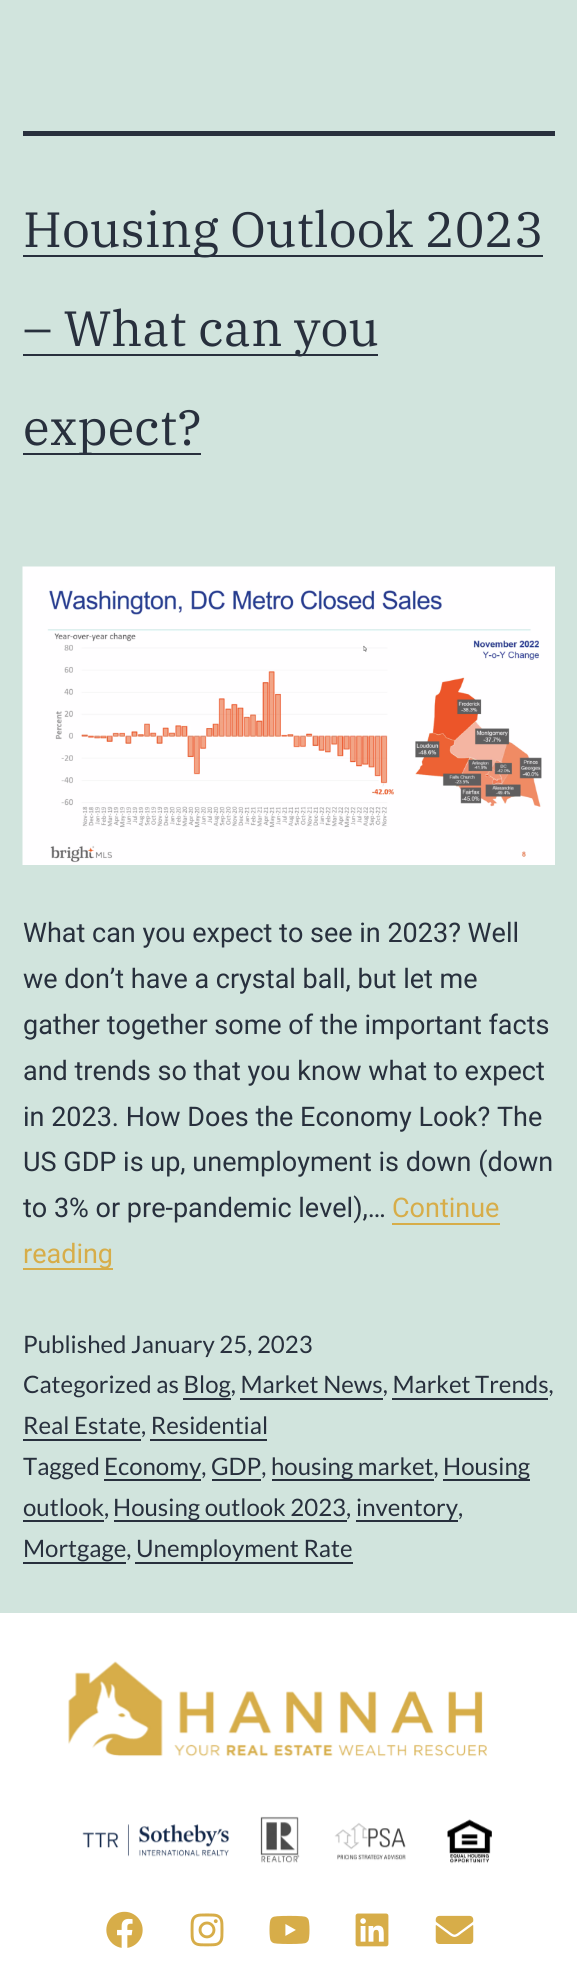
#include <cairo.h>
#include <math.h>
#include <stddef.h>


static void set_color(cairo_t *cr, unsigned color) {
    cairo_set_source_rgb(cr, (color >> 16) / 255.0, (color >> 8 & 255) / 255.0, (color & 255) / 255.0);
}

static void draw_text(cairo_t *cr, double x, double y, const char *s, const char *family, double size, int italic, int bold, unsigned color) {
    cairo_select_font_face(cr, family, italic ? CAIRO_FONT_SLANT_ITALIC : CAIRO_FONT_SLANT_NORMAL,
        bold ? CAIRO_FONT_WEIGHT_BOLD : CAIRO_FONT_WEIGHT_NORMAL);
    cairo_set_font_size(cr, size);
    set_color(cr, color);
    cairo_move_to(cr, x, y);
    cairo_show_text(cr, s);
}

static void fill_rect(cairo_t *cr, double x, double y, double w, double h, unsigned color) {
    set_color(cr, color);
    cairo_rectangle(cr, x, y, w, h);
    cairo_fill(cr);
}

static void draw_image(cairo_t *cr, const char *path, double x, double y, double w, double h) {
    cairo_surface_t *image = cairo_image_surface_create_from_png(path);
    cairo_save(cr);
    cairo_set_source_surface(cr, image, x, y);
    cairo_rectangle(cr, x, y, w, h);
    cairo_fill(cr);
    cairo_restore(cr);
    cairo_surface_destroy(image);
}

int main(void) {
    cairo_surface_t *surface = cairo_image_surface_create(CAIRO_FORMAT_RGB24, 577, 1977);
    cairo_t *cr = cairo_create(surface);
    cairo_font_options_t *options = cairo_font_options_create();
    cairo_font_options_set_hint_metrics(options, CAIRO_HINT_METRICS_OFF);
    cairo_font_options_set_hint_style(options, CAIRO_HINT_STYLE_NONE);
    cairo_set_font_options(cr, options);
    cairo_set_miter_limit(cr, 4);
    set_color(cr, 0xD1E4DD);
    cairo_paint(cr);
    fill_rect(cr, 23, 131, 532, 5, 0x28303D);
    fill_rect(cr, 23, 255, 520, 2, 0x28303D);
    draw_text(cr, 23, 247, "Housing Outlook 2023", "IBM Plex Serif", 49.5, 0, 0, 0x28303D);
    fill_rect(cr, 23, 354, 355, 2, 0x28303D);
    draw_text(cr, 23, 346, "– What can you", "IBM Plex Serif", 49.5, 0, 0, 0x28303D);
    fill_rect(cr, 23, 453, 178, 2, 0x28303D);
    draw_text(cr, 23, 445, "expect?", "IBM Plex Serif", 49.5, 0, 0, 0x28303D);
    draw_image(cr, "assets/img1.png", 22, 566, 533, 299);
    draw_text(cr, 23, 942, "What can you expect to see in 2023? Well", "Roboto", 27, 0, 0, 0x28303D);
    draw_text(cr, 23, 988, "we don’t have a crystal ball, but let me", "Roboto", 27, 0, 0, 0x28303D);
    draw_text(cr, 23, 1034, "gather together some of the important facts", "Roboto", 27, 0, 0, 0x28303D);
    draw_text(cr, 23, 1080, "and trends so that you know what to expect", "Roboto", 27, 0, 0, 0x28303D);
    draw_text(cr, 23, 1126, "in 2023. How Does the Economy Look? The", "Roboto", 27, 0, 0, 0x28303D);
    draw_text(cr, 23, 1171, "US GDP is up, unemployment is down (down", "Roboto", 27, 0, 0, 0x28303D);
    draw_text(cr, 23, 1217, "to 3% or pre-pandemic level),…", "Roboto", 27, 0, 0, 0x28303D);
    draw_text(cr, 392, 1217, "Continue", "Roboto", 27, 0, 0, 0xD7AD49);
    fill_rect(cr, 392, 1223, 108, 2, 0xD7AD49);
    fill_rect(cr, 23, 1268, 90, 2, 0xD7AD49);
    draw_text(cr, 23, 1263, "reading", "Roboto", 27, 0, 0, 0xD7AD49);
    draw_text(cr, 23, 1353, "Published January 25, 2023", "Lato", 24, 0, 0, 0x28303D);
    draw_text(cr, 23, 1393, "Categorized as Blog, Market News, Market Trends,", "Lato", 24, 0, 0, 0x28303D);
    fill_rect(cr, 183, 1398, 48, 2, 0x28303D);
    fill_rect(cr, 240, 1398, 143, 2, 0x28303D);
    fill_rect(cr, 392, 1398, 156, 2, 0x28303D);
    draw_text(cr, 23, 1434, "Real Estate, Residential", "Lato", 24, 0, 0, 0x28303D);
    fill_rect(cr, 23, 1439, 118, 2, 0x28303D);
    fill_rect(cr, 150, 1439, 117, 2, 0x28303D);
    draw_text(cr, 23, 1475, "Tagged", "Lato", 24, 0, 0, 0x28303D);
    fill_rect(cr, 104, 1479, 97, 2, 0x28303D);
    draw_text(cr, 104, 1475, "Economy, GDP,", "Lato", 24, 0, 0, 0x28303D);
    fill_rect(cr, 272, 1479, 162, 2, 0x28303D);
    draw_text(cr, 271, 1475, "housing market,", "Lato", 24, 0, 0, 0x28303D);
    fill_rect(cr, 443, 1479, 87, 2, 0x28303D);
    draw_text(cr, 443, 1475, "Housing", "Lato", 24, 0, 0, 0x28303D);
    fill_rect(cr, 212, 1479, 49, 2, 0x28303D);
    draw_text(cr, 23, 1516, "outlook,", "Lato", 24, 0, 0, 0x28303D);
    fill_rect(cr, 23, 1520, 81, 2, 0x28303D);
    fill_rect(cr, 114, 1520, 233, 2, 0x28303D);
    draw_text(cr, 113, 1516, "Housing outlook 2023,", "Lato", 24, 0, 0, 0x28303D);
    fill_rect(cr, 356, 1520, 102, 2, 0x28303D);
    draw_text(cr, 356, 1516, "inventory,", "Lato", 24, 0, 0, 0x28303D);
    draw_text(cr, 23, 1557, "Mortgage, Unemployment Rate", "Lato", 24, 0, 0, 0x28303D);
    fill_rect(cr, 23, 1562, 103, 2, 0x28303D);
    fill_rect(cr, 135, 1562, 218, 2, 0x28303D);
    fill_rect(cr, 0, 1613, 577, 364, 0xFFFFFF);
    draw_image(cr, "assets/img2.png", 68, 1661, 419, 96);
    draw_image(cr, "assets/img3.png", 82, 1816, 410, 48);
    draw_image(cr, "assets/img4.png", 106, 1911, 37, 37);
    draw_image(cr, "assets/img5.png", 190, 1913, 34, 34);
    draw_image(cr, "assets/img6.png", 269, 1915, 41, 29);
    draw_image(cr, "assets/img7.png", 355, 1913, 34, 34);
    draw_image(cr, "assets/img8.png", 435, 1915, 39, 29);
    cairo_surface_write_to_png(surface, "output.png");
    cairo_font_options_destroy(options);
    cairo_destroy(cr);
    cairo_surface_destroy(surface);
    return 0;
}
